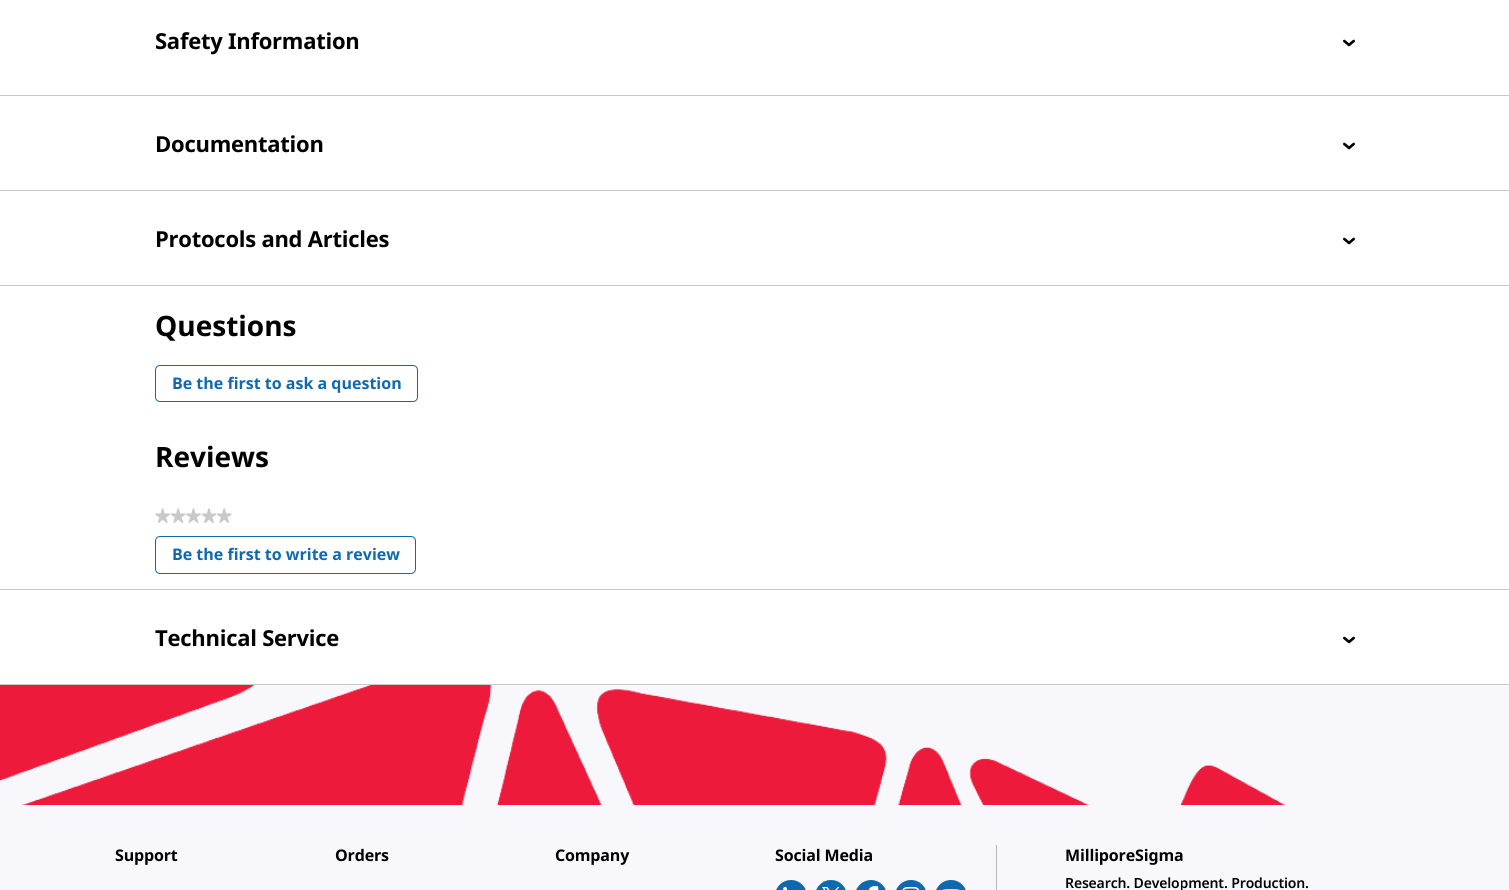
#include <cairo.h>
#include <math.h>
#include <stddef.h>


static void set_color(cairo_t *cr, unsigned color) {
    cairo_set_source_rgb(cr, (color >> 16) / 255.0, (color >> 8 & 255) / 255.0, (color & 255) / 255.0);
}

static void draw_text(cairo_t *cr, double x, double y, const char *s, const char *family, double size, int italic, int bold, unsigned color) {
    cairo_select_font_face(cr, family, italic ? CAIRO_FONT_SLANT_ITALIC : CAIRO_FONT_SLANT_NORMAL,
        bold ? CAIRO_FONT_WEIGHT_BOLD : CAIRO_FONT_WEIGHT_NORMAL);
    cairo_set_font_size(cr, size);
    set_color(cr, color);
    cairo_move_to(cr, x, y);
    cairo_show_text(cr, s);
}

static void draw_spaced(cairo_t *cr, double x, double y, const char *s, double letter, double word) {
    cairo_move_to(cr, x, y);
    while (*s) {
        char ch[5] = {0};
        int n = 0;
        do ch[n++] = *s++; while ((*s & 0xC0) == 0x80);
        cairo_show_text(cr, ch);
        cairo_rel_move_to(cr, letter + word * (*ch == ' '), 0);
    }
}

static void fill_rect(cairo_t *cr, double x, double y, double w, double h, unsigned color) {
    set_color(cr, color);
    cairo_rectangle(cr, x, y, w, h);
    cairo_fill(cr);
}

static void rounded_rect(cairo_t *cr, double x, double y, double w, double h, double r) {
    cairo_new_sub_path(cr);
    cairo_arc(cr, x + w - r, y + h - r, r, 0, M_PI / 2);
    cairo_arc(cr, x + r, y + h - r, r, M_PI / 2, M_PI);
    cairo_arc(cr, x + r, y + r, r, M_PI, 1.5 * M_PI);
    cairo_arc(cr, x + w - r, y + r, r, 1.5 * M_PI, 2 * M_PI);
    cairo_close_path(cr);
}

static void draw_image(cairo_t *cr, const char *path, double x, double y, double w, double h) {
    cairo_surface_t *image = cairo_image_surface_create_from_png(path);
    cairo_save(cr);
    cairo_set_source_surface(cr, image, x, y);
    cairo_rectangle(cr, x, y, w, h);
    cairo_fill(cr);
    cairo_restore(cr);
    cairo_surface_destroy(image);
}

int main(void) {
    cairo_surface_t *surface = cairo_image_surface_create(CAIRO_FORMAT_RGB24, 1509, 890);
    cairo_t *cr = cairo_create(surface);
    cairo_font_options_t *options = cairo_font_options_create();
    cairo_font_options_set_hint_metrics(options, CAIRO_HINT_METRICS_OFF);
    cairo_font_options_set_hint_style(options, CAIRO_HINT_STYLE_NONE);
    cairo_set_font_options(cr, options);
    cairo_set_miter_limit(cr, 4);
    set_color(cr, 0xF8F8FC);
    cairo_paint(cr);
    draw_image(cr, "assets/img1.png", 0, 685, 1286, 120);
    fill_rect(cr, 0, 0, 1509, 95, 0xFFFFFF);
    fill_rect(cr, 0, 95, 1509, 1, 0xC9C9C9);
    cairo_select_font_face(cr, "Noto Sans", CAIRO_FONT_SLANT_NORMAL, CAIRO_FONT_WEIGHT_BOLD);
    cairo_set_font_size(cr, 22);
    set_color(cr, 0x000000);
    draw_spaced(cr, 155, 49, "Safety Information", -0.25, 0);
    draw_image(cr, "assets/img2.png", 1343, 39, 12, 8);
    fill_rect(cr, 0, 190, 1509, 1, 0xC9C9C9);
    fill_rect(cr, 0, 96, 1509, 94, 0xFFFFFF);
    set_color(cr, 0x000000);
    draw_spaced(cr, 155, 152, "Documentation", -0.25, 0);
    draw_image(cr, "assets/img2.png", 1343, 142, 12, 8);
    fill_rect(cr, 0, 191, 1509, 94, 0xFFFFFF);
    fill_rect(cr, 0, 285, 1509, 1, 0xC9C9C9);
    set_color(cr, 0x000000);
    draw_spaced(cr, 155, 247, "Protocols and Articles", -0.25, 0);
    draw_image(cr, "assets/img2.png", 1343, 237, 12, 8);
    fill_rect(cr, 0, 286, 1509, 303, 0xFFFFFF);
    fill_rect(cr, 0, 589, 1509, 1, 0xC9C9C9);
    draw_text(cr, 155, 336, "Questions", "Noto Sans", 28, 0, 1, 0x000000);
    rounded_rect(cr, 155.5, 365.5, 262, 36, 4.5);
    set_color(cr, 0x0F69AF);
    cairo_set_line_width(cr, 1);
    cairo_stroke(cr);
    draw_text(cr, 172, 389, "Be the first to ask a question", "Noto Sans", 16, 0, 1, 0x0F69AF);
    draw_text(cr, 155, 467, "Reviews", "Noto Sans", 28, 0, 1, 0x000000);
    draw_text(cr, 155, 523, "★★★★★", "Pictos", 20, 0, 0, 0xC9C9C9);
    rounded_rect(cr, 155.5, 536.5, 260, 37, 4.5);
    set_color(cr, 0x0F69AF);
    cairo_stroke(cr);
    draw_text(cr, 172, 560, "Be the first to write a review", "Noto Sans", 16, 0, 1, 0x0F69AF);
    fill_rect(cr, 0, 590, 1509, 94, 0xFFFFFF);
    fill_rect(cr, 0, 684, 1509, 1, 0xC9C9C9);
    cairo_set_font_size(cr, 22);
    set_color(cr, 0x000000);
    draw_spaced(cr, 155, 646, "Technical Service", -0.25, 0);
    draw_image(cr, "assets/img2.png", 1343, 636, 12, 8);
    cairo_set_font_size(cr, 16);
    draw_spaced(cr, 115, 861, "Support", -0.15, 0);
    draw_spaced(cr, 335, 861, "Orders", -0.15, 0);
    draw_spaced(cr, 555, 861, "Company", -0.15, 0);
    draw_spaced(cr, 775, 861, "Social Media", -0.15, 0);
    draw_image(cr, "assets/img3.png", 776, 880, 30, 10);
    draw_image(cr, "assets/img4.png", 816, 880, 30, 10);
    draw_image(cr, "assets/img5.png", 856, 880, 30, 10);
    draw_image(cr, "assets/img6.png", 896, 880, 30, 10);
    draw_image(cr, "assets/img7.png", 936, 880, 30, 10);
    fill_rect(cr, 996, 845, 1, 45, 0xB8B8BA);
    set_color(cr, 0x000000);
    draw_spaced(cr, 1065, 861, "MilliporeSigma", -0.15, 0);
    cairo_select_font_face(cr, "Noto Sans SemiBold", CAIRO_FONT_SLANT_NORMAL, CAIRO_FONT_WEIGHT_NORMAL);
    cairo_set_font_size(cr, 14);
    draw_spaced(cr, 1065, 888, "Research. Development. Production.", -0.15, 0);
    cairo_surface_write_to_png(surface, "output.png");
    cairo_font_options_destroy(options);
    cairo_destroy(cr);
    cairo_surface_destroy(surface);
    return 0;
}
